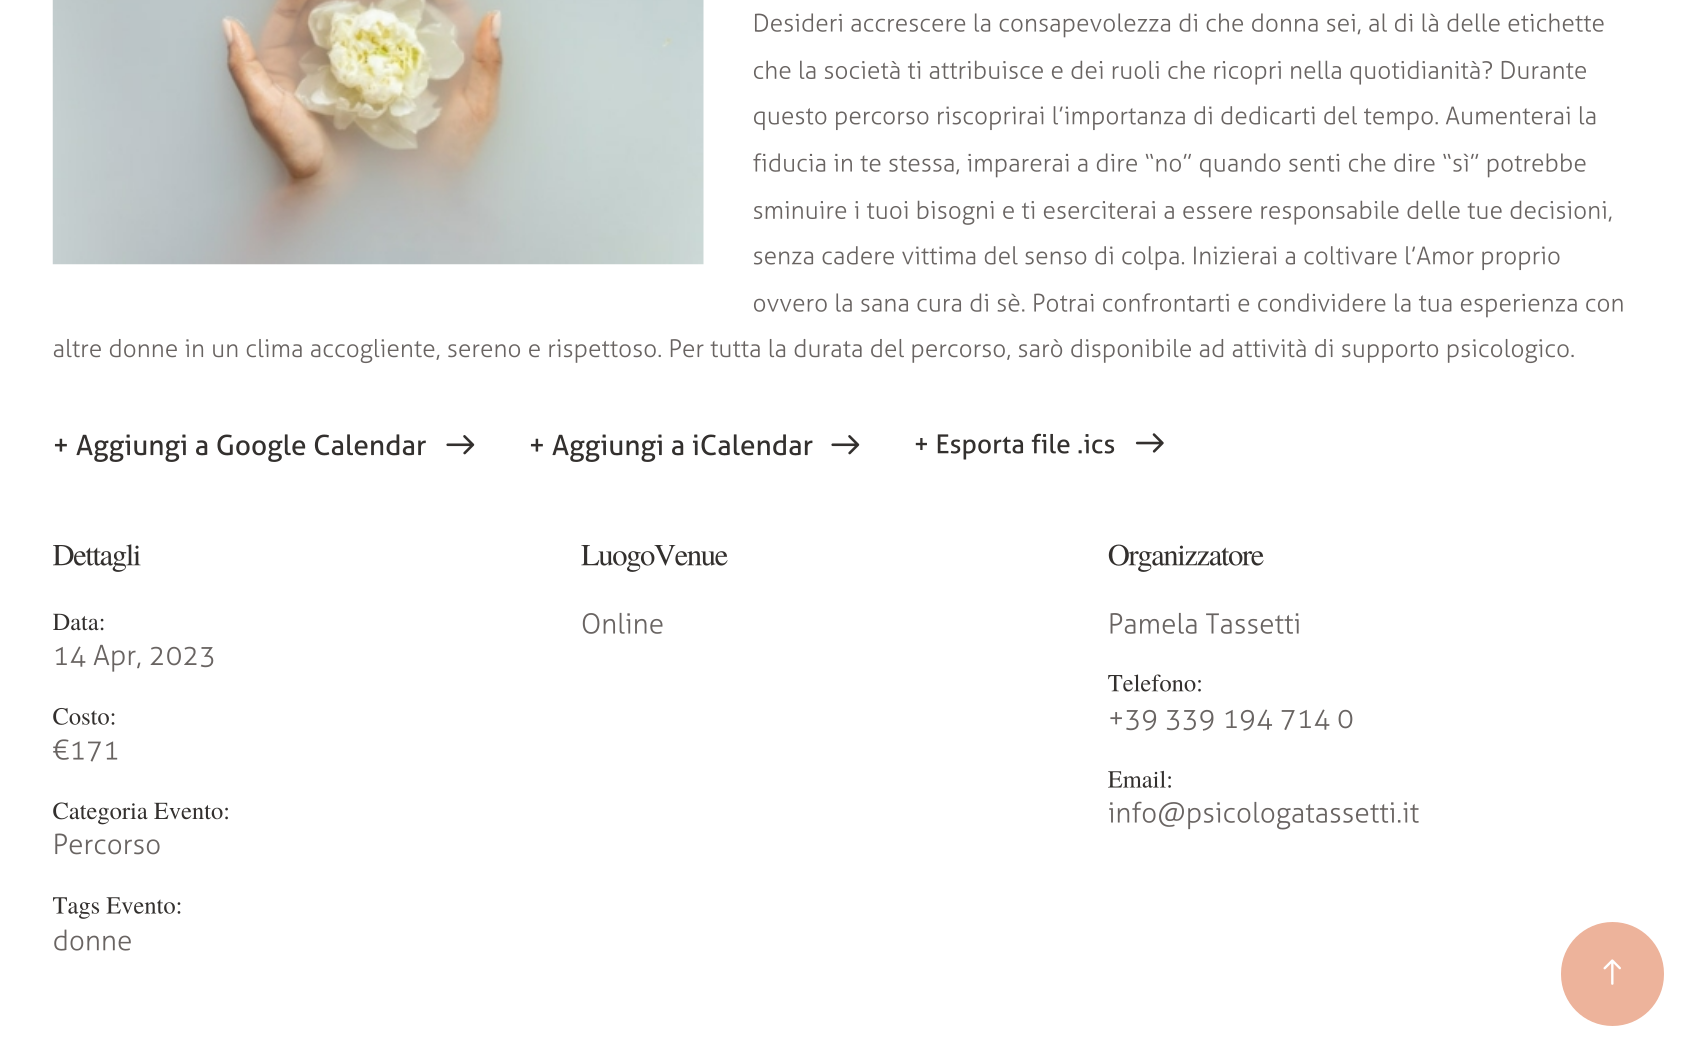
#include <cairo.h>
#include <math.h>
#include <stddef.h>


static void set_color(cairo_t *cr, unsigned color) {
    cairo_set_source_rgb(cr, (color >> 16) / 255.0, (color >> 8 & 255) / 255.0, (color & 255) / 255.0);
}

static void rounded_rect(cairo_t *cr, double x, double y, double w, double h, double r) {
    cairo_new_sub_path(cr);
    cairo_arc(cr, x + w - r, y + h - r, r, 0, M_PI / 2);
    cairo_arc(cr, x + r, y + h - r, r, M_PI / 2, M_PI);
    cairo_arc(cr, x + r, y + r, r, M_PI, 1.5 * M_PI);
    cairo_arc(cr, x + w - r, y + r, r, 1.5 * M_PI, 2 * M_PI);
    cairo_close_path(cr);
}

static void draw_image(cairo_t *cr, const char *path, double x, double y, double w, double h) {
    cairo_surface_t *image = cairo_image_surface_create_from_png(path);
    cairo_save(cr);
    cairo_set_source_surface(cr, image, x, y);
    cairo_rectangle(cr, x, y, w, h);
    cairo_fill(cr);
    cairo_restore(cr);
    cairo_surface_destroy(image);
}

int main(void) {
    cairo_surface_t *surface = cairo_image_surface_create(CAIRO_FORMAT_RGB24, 1688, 1049);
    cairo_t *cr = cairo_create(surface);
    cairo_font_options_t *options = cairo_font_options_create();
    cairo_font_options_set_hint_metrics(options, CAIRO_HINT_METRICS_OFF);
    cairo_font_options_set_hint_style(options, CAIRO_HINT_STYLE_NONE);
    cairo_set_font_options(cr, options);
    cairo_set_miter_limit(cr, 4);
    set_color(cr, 0xFFFFFF);
    cairo_paint(cr);
    draw_image(cr, "assets/img1.png", 52, 0, 652, 265);
    draw_image(cr, "assets/img2.png", 754, 13, 850, 25);
    draw_image(cr, "assets/img3.png", 753, 60, 833, 25);
    draw_image(cr, "assets/img4.png", 754, 106, 842, 25);
    draw_image(cr, "assets/img5.png", 753, 153, 833, 25);
    draw_image(cr, "assets/img6.png", 753, 200, 859, 25);
    draw_image(cr, "assets/img7.png", 753, 246, 807, 25);
    draw_image(cr, "assets/img8.png", 753, 293, 870, 25);
    draw_image(cr, "assets/img9.png", 53, 338, 1521, 26);
    draw_image(cr, "assets/img10.png", 54, 434, 372, 28);
    draw_image(cr, "assets/img11.png", 446, 435, 29, 20);
    draw_image(cr, "assets/img12.png", 530, 434, 283, 28);
    draw_image(cr, "assets/img11.png", 831, 435, 29, 20);
    draw_image(cr, "assets/img13.png", 915, 433, 200, 27);
    draw_image(cr, "assets/img14.png", 1135, 433, 29, 20);
    draw_image(cr, "assets/img15.png", 53, 544, 88, 28);
    draw_image(cr, "assets/img16.png", 53, 613, 51, 18);
    draw_image(cr, "assets/img17.png", 55, 644, 159, 28);
    draw_image(cr, "assets/img18.png", 53, 707, 62, 18);
    draw_image(cr, "assets/img19.png", 53, 739, 65, 23);
    draw_image(cr, "assets/img20.png", 53, 802, 175, 23);
    draw_image(cr, "assets/img21.png", 55, 833, 105, 22);
    draw_image(cr, "assets/img22.png", 53, 897, 128, 22);
    draw_image(cr, "assets/img23.png", 54, 929, 77, 22);
    draw_image(cr, "assets/img24.png", 581, 545, 147, 27);
    draw_image(cr, "assets/img25.png", 582, 612, 81, 22);
    draw_image(cr, "assets/img26.png", 1108, 544, 156, 28);
    draw_image(cr, "assets/img27.png", 1110, 612, 189, 22);
    draw_image(cr, "assets/img28.png", 1108, 674, 93, 18);
    draw_image(cr, "assets/img29.png", 1110, 709, 243, 22);
    draw_image(cr, "assets/img30.png", 1108, 770, 63, 18);
    draw_image(cr, "assets/img31.png", 1109, 801, 310, 29);
    set_color(cr, 0xEDB39B);
    rounded_rect(cr, 1561, 922, 103, 104, 51.5);
    cairo_fill(cr);
    draw_image(cr, "assets/img32.png", 1603, 959, 18, 26);
    cairo_surface_write_to_png(surface, "output.png");
    cairo_font_options_destroy(options);
    cairo_destroy(cr);
    cairo_surface_destroy(surface);
    return 0;
}
